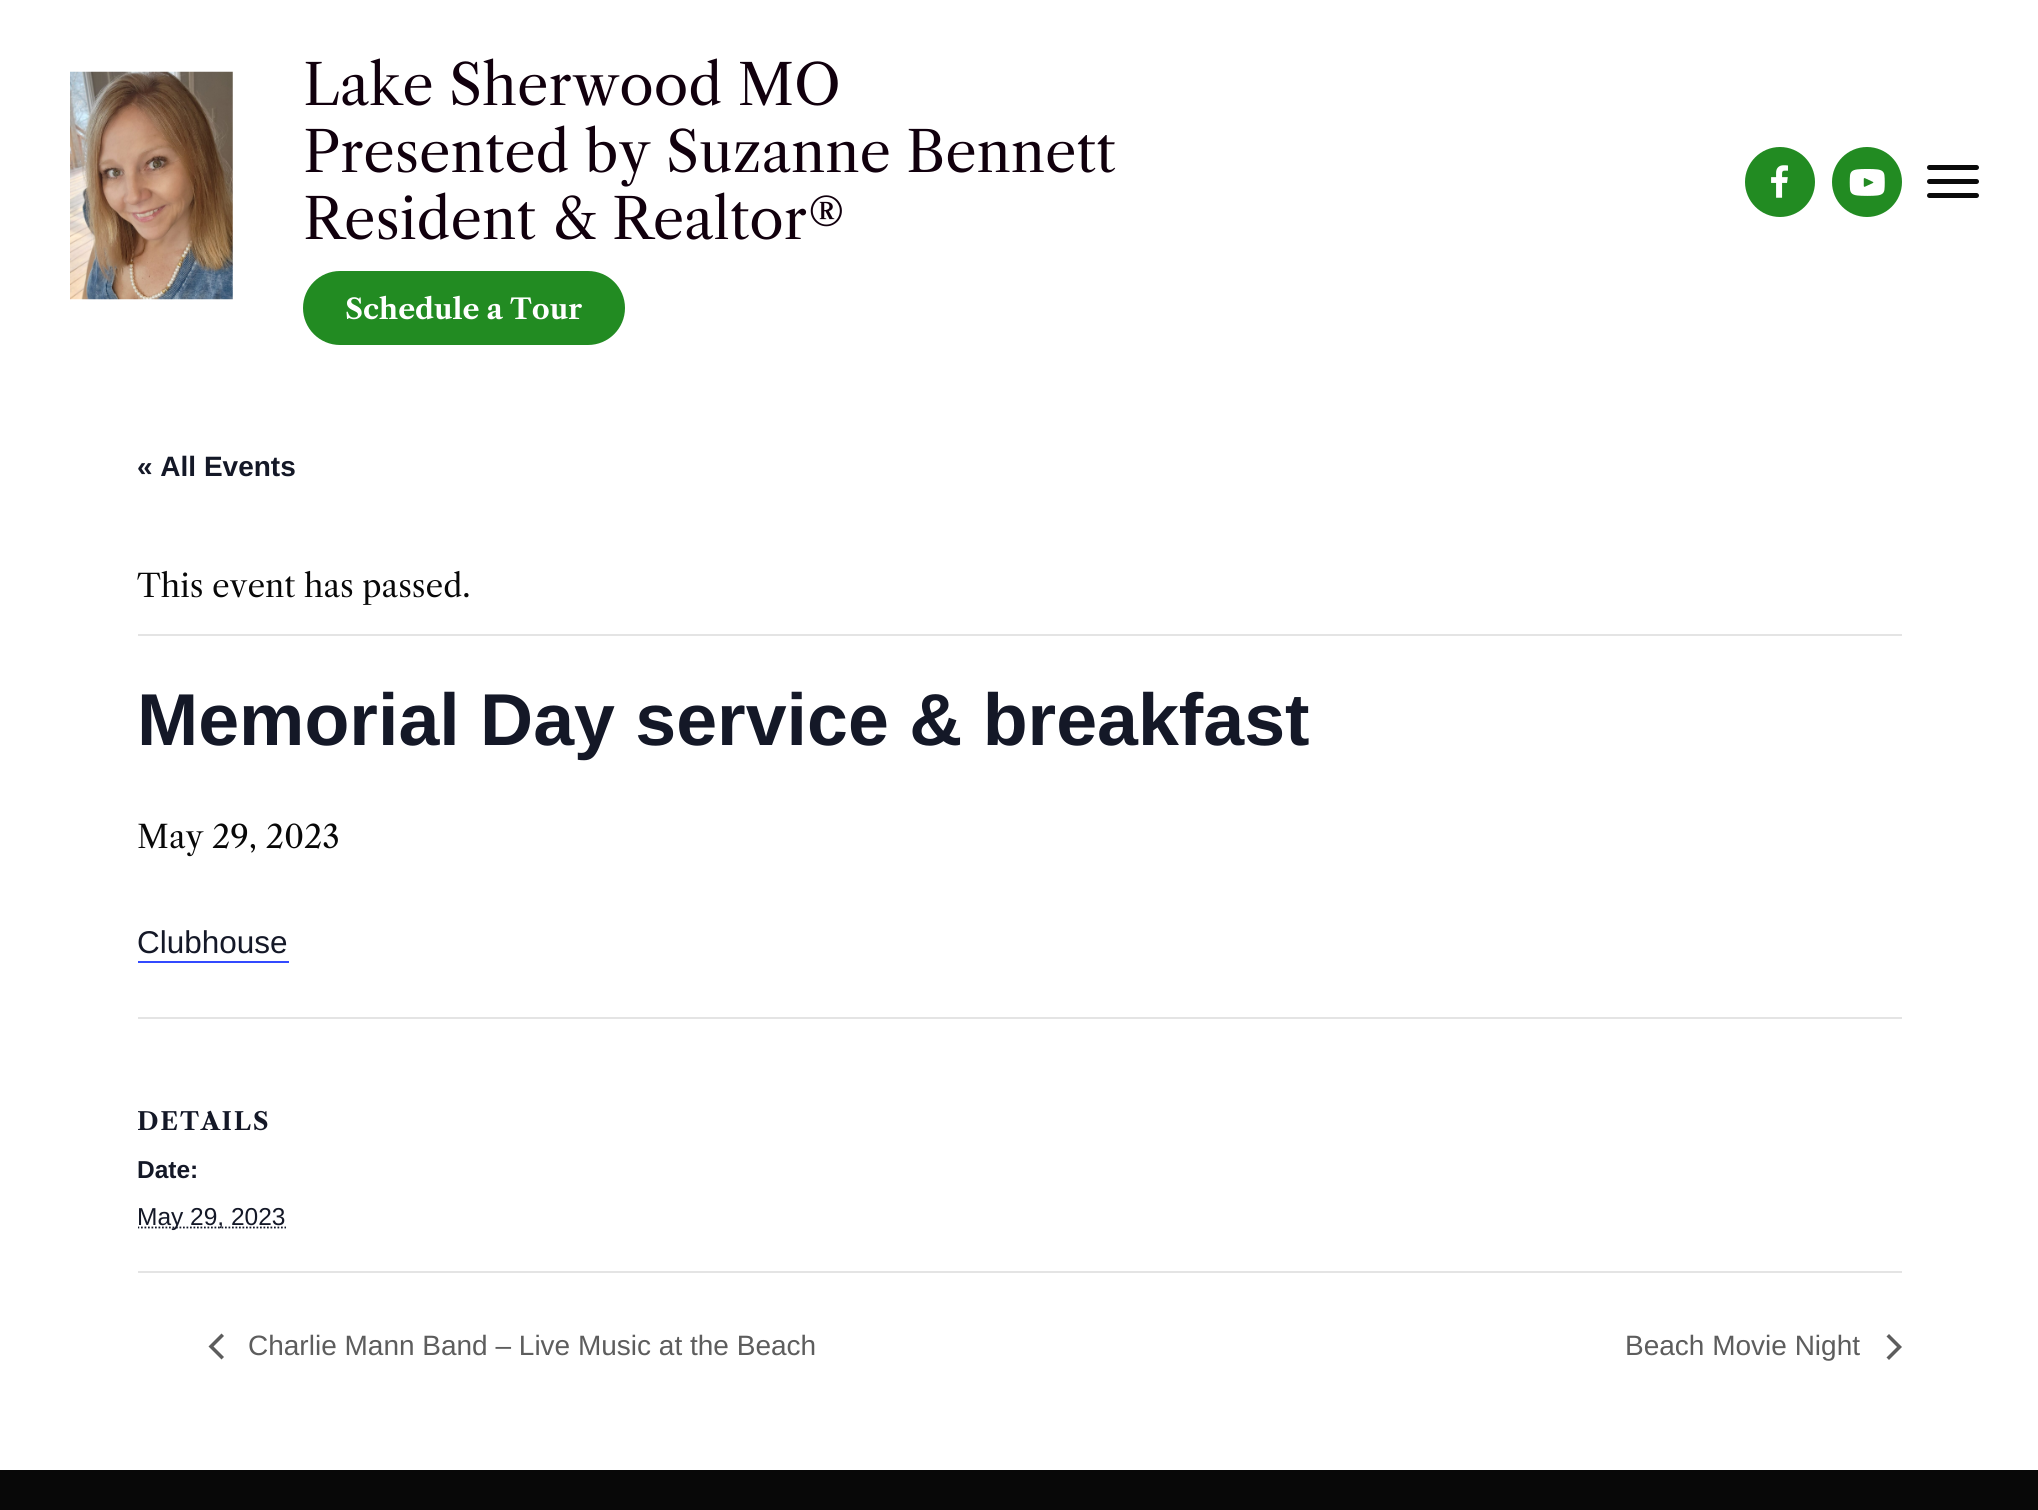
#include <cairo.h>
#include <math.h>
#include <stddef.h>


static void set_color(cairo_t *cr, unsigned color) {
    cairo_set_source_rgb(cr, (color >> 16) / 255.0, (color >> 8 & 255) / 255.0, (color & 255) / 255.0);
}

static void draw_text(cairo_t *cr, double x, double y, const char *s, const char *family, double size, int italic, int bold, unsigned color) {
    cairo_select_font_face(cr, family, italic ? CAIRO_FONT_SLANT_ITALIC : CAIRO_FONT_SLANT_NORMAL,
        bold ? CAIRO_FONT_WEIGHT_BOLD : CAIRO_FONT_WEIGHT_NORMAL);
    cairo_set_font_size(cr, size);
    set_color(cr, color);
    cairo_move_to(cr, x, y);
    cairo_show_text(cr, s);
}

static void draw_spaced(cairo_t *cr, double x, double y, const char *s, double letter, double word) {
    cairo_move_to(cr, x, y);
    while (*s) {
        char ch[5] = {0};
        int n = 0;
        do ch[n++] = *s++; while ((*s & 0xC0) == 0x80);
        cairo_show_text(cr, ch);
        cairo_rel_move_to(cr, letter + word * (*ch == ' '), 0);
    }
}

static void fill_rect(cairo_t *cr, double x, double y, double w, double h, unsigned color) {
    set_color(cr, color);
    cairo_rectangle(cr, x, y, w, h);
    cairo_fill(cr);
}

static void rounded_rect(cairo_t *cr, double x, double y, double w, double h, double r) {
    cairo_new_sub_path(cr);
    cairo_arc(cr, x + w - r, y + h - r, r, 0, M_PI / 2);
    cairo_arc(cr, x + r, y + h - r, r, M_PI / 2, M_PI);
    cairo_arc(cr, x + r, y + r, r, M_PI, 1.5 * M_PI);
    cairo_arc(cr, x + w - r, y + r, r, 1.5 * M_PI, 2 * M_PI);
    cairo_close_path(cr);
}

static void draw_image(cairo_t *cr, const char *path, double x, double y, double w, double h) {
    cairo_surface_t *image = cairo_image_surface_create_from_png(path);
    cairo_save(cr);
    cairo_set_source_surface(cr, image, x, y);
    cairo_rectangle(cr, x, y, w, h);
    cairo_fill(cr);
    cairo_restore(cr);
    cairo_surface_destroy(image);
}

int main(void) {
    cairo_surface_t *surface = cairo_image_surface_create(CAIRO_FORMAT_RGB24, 2038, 1510);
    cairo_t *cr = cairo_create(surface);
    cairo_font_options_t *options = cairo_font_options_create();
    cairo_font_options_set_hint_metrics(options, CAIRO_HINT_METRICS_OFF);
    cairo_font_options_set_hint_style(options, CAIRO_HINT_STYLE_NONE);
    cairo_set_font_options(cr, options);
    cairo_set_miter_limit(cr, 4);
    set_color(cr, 0xFFFFFF);
    cairo_paint(cr);
    draw_image(cr, "assets/img1.png", 70, 71, 163, 229);
    draw_text(cr, 303, 105, "Lake Sherwood MO", "Libre Caslon Text", 56, 0, 0, 0x11000D);
    draw_text(cr, 303, 172, "Presented by Suzanne Bennett", "Libre Caslon Text", 56, 0, 0, 0x11000D);
    draw_text(cr, 303, 239, "Resident & Realtor®", "Libre Caslon Text", 56, 0, 0, 0x11000D);
    set_color(cr, 0x228B22);
    rounded_rect(cr, 303, 271, 322, 74, 37);
    cairo_fill(cr);
    draw_text(cr, 345, 319, "Schedule a Tour", "Libre Caslon Text", 28, 0, 1, 0xFFFFFF);
    set_color(cr, 0x228B22);
    cairo_new_path(cr);
    cairo_arc(cr, 1780, 182, 35, 0, 2 * M_PI);
    cairo_fill(cr);
    draw_image(cr, "assets/img2.png", 1771, 165, 17, 33);
    cairo_arc(cr, 1867, 182, 35, 0, 2 * M_PI);
    cairo_fill(cr);
    draw_image(cr, "assets/img3.png", 1849, 169, 36, 27);
    set_color(cr, 0x0A0A0A);
    rounded_rect(cr, 1927, 179, 52, 5, 2.5);
    cairo_fill(cr);
    rounded_rect(cr, 1927, 165, 52, 5, 2.5);
    cairo_fill(cr);
    rounded_rect(cr, 1927, 193, 52, 5, 2.5);
    cairo_fill(cr);
    draw_text(cr, 137, 476, "« All Events", "Liberation Sans", 28, 0, 1, 0x141827);
    fill_rect(cr, 138, 634, 1764, 2, 0xE4E4E4);
    draw_text(cr, 137, 597, "This event has passed.", "Libre Caslon Text", 31.5, 0, 0, 0x080808);
    draw_text(cr, 137, 745, "Memorial Day service & breakfast", "Liberation Sans", 73.5, 0, 1, 0x141827);
    draw_text(cr, 137, 848, "May 29, 2023", "Libre Caslon Text", 31.5, 0, 0, 0x080808);
    draw_text(cr, 137, 953, "Clubhouse", "Liberation Sans", 31.5, 0, 0, 0x141827);
    fill_rect(cr, 138, 961, 151, 2, 0x334AFF);
    fill_rect(cr, 138, 1017, 1764, 2, 0xE4E4E4);
    cairo_select_font_face(cr, "Libre Caslon Text", CAIRO_FONT_SLANT_NORMAL, CAIRO_FONT_WEIGHT_BOLD);
    cairo_set_font_size(cr, 24.5);
    set_color(cr, 0x141827);
    draw_spaced(cr, 137, 1130, "DETAILS", 1.75, 0);
    draw_text(cr, 137, 1178, "Date:", "Liberation Sans", 24.5, 0, 1, 0x141827);
    cairo_save(cr);
    cairo_rectangle(cr, 138, 921, 1764, 350);
    cairo_clip(cr);
    cairo_new_path(cr);
    cairo_move_to(cr, 137.5, 1227.5);
    cairo_line_to(cr, 286, 1227.5);
    cairo_set_line_width(cr, 1.8);
    cairo_set_dash(cr, (double[]){1.75, 1.75}, 2, 0);
    cairo_stroke(cr);
    cairo_restore(cr);
    draw_text(cr, 137, 1225, "May 29, 2023", "Liberation Sans", 24.5, 0, 0, 0x141827);
    fill_rect(cr, 138, 1271, 1764, 2, 0xE4E4E4);
    set_color(cr, 0x5D5D5D);
    cairo_new_path(cr);
    cairo_move_to(cr, 224, 1357);
    cairo_line_to(cr, 221.5, 1359.5);
    cairo_line_to(cr, 208.5, 1346.5);
    cairo_line_to(cr, 221.5, 1333.5);
    cairo_line_to(cr, 224, 1336);
    cairo_line_to(cr, 213.5, 1346.5);
    cairo_close_path(cr);
    cairo_fill(cr);
    draw_text(cr, 248, 1355, "Charlie Mann Band – Live Music at the Beach", "Liberation Sans", 28, 0, 0, 0x5D5D5D);
    draw_text(cr, 1625, 1355, "Beach Movie Night", "Liberation Sans", 28, 0, 0, 0x5D5D5D);
    cairo_new_path(cr);
    cairo_move_to(cr, 1886.5, 1336.5);
    cairo_line_to(cr, 1889, 1334);
    cairo_line_to(cr, 1902, 1347);
    cairo_line_to(cr, 1889, 1360);
    cairo_line_to(cr, 1886.5, 1357.5);
    cairo_line_to(cr, 1897, 1347);
    cairo_close_path(cr);
    cairo_fill(cr);
    fill_rect(cr, 0, 1470, 2038, 40, 0x080808);
    cairo_surface_write_to_png(surface, "output.png");
    cairo_font_options_destroy(options);
    cairo_destroy(cr);
    cairo_surface_destroy(surface);
    return 0;
}
